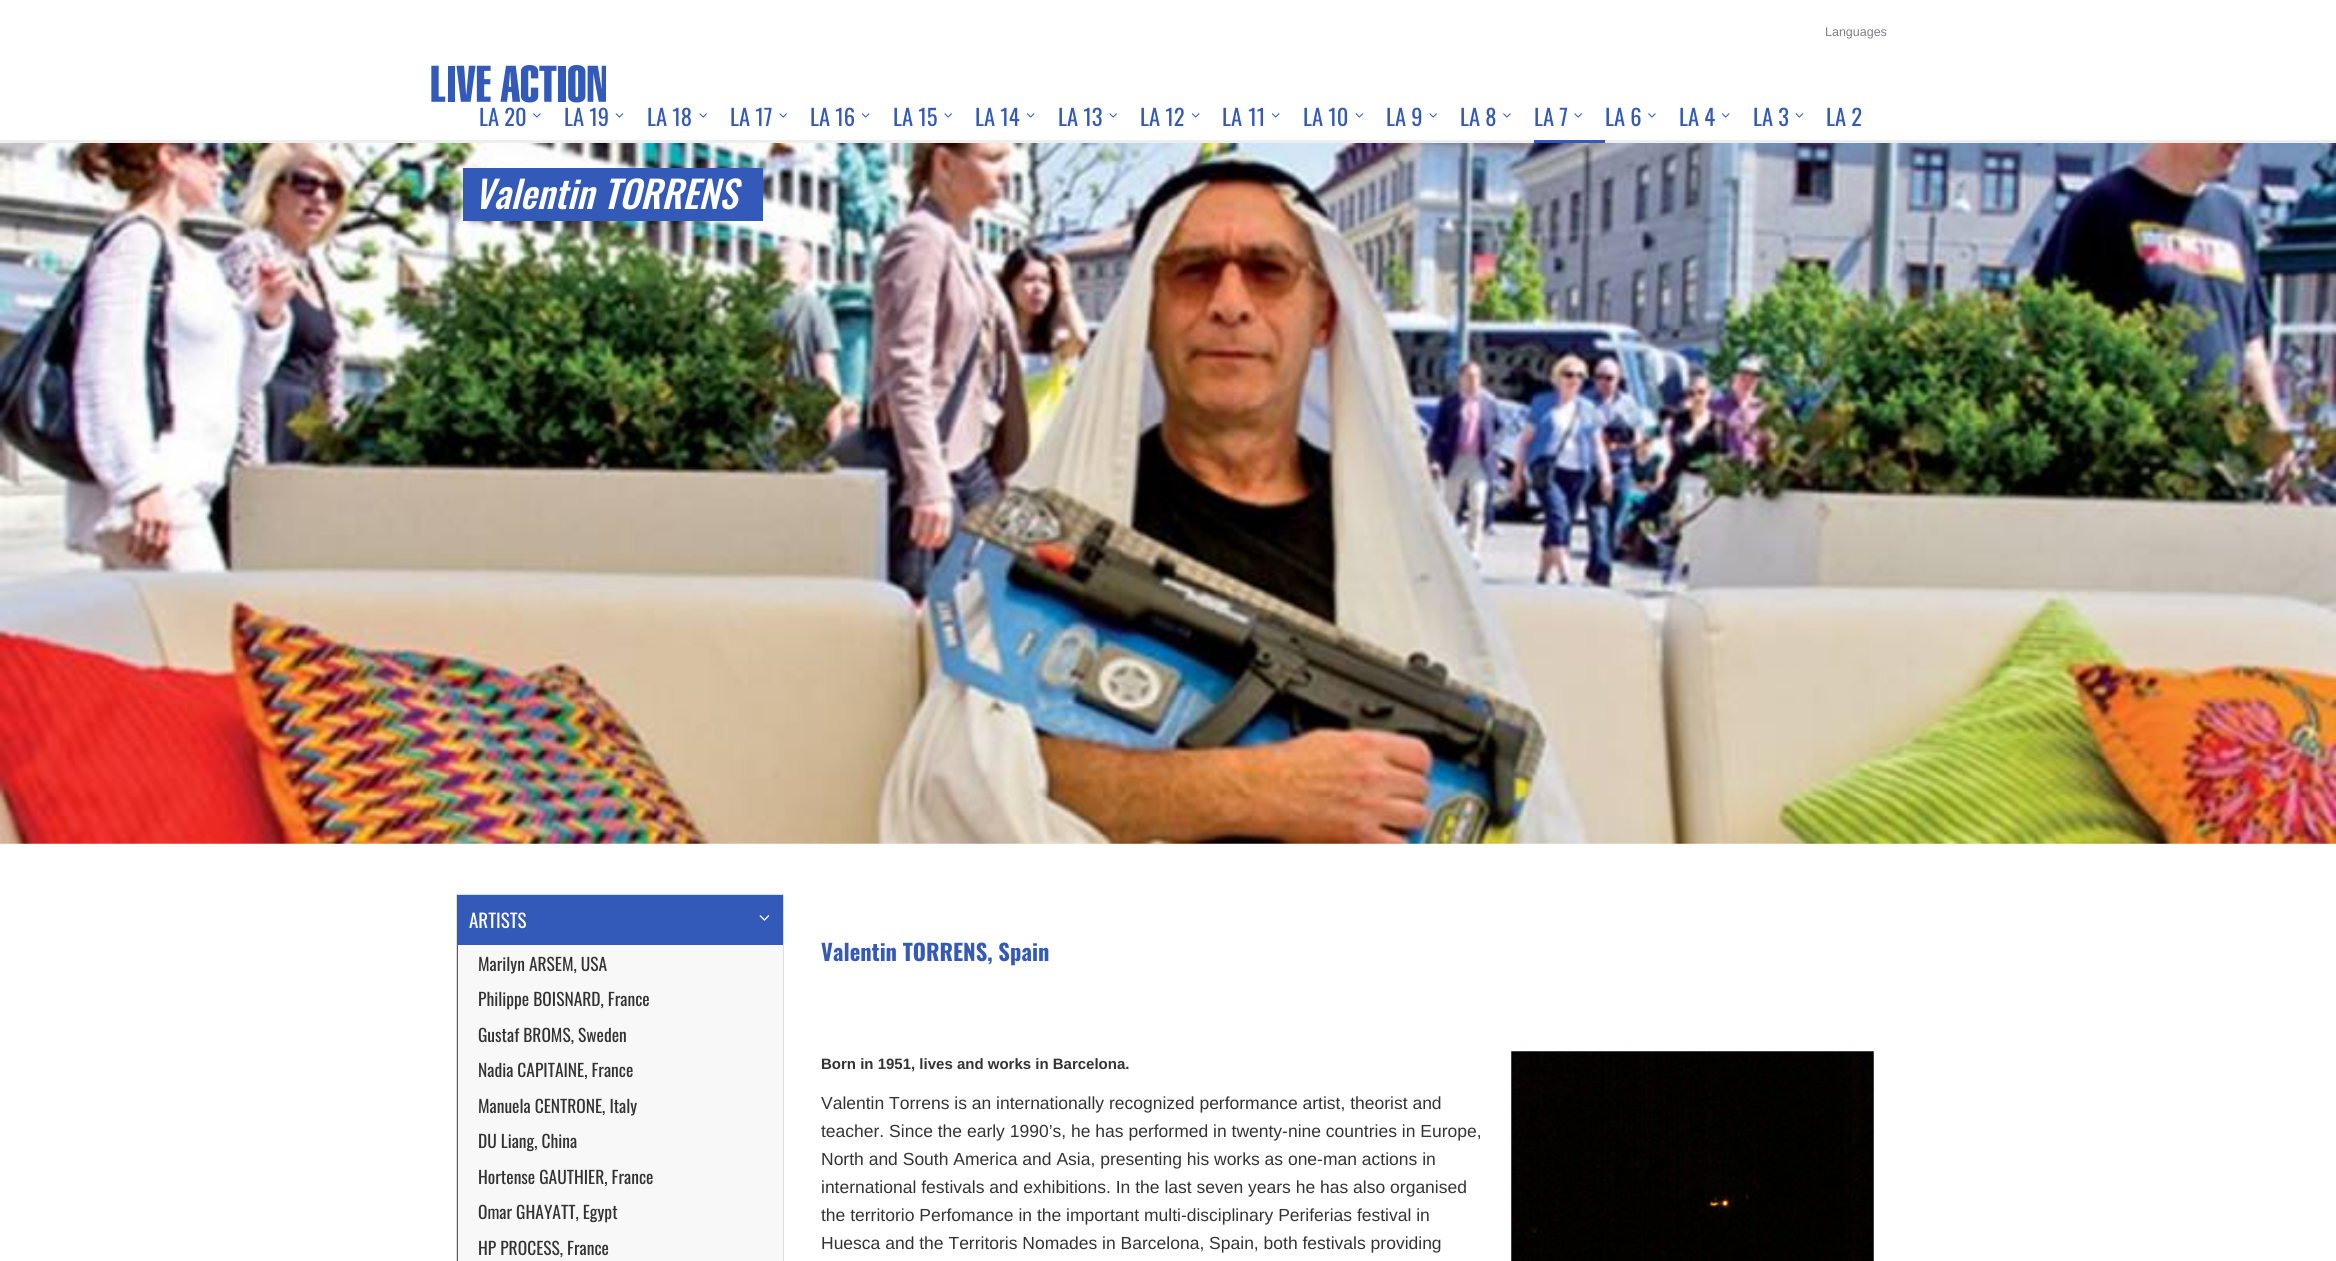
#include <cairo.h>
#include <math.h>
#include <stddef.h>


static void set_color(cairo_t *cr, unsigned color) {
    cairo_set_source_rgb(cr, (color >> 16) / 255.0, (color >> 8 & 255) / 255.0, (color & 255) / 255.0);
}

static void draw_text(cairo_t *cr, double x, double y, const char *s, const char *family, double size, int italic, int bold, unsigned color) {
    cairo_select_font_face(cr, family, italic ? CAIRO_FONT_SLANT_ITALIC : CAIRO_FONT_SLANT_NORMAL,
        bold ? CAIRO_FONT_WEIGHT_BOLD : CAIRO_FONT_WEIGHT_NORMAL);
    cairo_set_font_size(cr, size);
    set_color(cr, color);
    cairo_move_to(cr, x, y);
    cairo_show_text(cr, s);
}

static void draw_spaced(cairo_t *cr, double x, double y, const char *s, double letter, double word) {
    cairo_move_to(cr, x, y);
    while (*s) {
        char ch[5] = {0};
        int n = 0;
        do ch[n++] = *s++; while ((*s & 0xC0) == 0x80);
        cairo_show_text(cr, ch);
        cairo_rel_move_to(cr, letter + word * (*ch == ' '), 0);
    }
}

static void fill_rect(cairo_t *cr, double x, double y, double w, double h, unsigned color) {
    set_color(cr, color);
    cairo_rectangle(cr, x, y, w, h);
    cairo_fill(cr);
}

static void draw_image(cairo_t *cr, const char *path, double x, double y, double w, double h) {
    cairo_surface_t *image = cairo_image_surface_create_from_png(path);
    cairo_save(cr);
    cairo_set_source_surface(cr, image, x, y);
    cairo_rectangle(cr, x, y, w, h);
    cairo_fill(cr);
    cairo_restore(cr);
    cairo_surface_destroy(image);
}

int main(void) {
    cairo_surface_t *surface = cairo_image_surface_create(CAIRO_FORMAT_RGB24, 2336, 1261);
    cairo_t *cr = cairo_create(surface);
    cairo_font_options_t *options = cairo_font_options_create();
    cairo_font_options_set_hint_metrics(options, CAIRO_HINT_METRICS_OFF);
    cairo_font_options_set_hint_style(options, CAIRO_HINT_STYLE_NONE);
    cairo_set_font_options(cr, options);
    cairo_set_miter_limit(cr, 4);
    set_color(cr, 0xFFFFFF);
    cairo_paint(cr);
    fill_rect(cr, 0, 140, 2336, 3, 0xEEEEEE);
    draw_text(cr, 1825, 36, "Languages", "Liberation Sans", 12.5, 0, 0, 0x7C8082);
    draw_image(cr, "assets/img1.png", 431, 65, 175, 38);
    draw_text(cr, 479, 126, "LA 20", "Oswald", 22.5, 0, 0, 0x3359B9);
    draw_image(cr, "assets/img2.png", 533, 113, 8, 5);
    draw_text(cr, 564, 126, "LA 19", "Oswald", 22.5, 0, 0, 0x3359B9);
    draw_image(cr, "assets/img3.png", 615, 113, 9, 5);
    draw_text(cr, 647, 126, "LA 18", "Oswald", 22.5, 0, 0, 0x3359B9);
    draw_image(cr, "assets/img4.png", 699, 113, 8, 5);
    draw_text(cr, 730, 126, "LA 17", "Oswald", 22.5, 0, 0, 0x3359B9);
    draw_image(cr, "assets/img4.png", 779, 113, 8, 5);
    draw_text(cr, 810, 126, "LA 16", "Oswald", 22.5, 0, 0, 0x3359B9);
    draw_image(cr, "assets/img5.png", 861, 113, 9, 5);
    draw_text(cr, 893, 126, "LA 15", "Oswald", 22.5, 0, 0, 0x3359B9);
    draw_image(cr, "assets/img4.png", 944, 113, 8, 5);
    draw_text(cr, 975, 126, "LA 14", "Oswald", 22.5, 0, 0, 0x3359B9);
    draw_image(cr, "assets/img5.png", 1026, 113, 9, 5);
    draw_text(cr, 1058, 126, "LA 13", "Oswald", 22.5, 0, 0, 0x3359B9);
    draw_image(cr, "assets/img4.png", 1109, 113, 8, 5);
    draw_text(cr, 1140, 126, "LA 12", "Oswald", 22.5, 0, 0, 0x3359B9);
    draw_image(cr, "assets/img5.png", 1191, 113, 9, 5);
    draw_spaced(cr, 1222, 126, "LA 11", 0, 1);
    draw_image(cr, "assets/img5.png", 1271, 113, 9, 5);
    draw_text(cr, 1303, 126, "LA 10", "Oswald", 22.5, 0, 0, 0x3359B9);
    draw_image(cr, "assets/img3.png", 1355, 113, 9, 5);
    draw_text(cr, 1386, 126, "LA 9", "Oswald", 22.5, 0, 0, 0x3359B9);
    draw_image(cr, "assets/img4.png", 1429, 113, 8, 5);
    draw_text(cr, 1460, 126, "LA 8", "Oswald", 22.5, 0, 0, 0x3359B9);
    draw_image(cr, "assets/img2.png", 1503, 113, 8, 5);
    fill_rect(cr, 1534, 140, 71, 3, 0x3359B9);
    draw_text(cr, 1534, 126, "LA 7", "Oswald", 22.5, 0, 0, 0x3359B9);
    draw_image(cr, "assets/img4.png", 1574, 113, 8, 5);
    draw_text(cr, 1605, 126, "LA 6", "Oswald", 22.5, 0, 0, 0x3359B9);
    draw_image(cr, "assets/img2.png", 1648, 113, 8, 5);
    draw_text(cr, 1679, 126, "LA 4", "Oswald", 22.5, 0, 0, 0x3359B9);
    draw_image(cr, "assets/img5.png", 1721, 113, 9, 5);
    draw_text(cr, 1753, 126, "LA 3", "Oswald", 22.5, 0, 0, 0x3359B9);
    draw_image(cr, "assets/img3.png", 1795, 113, 9, 5);
    draw_text(cr, 1826, 126, "LA 2", "Oswald", 22.5, 0, 0, 0x3359B9);
    draw_image(cr, "assets/img6.png", 0, 143, 2336, 701);
    fill_rect(cr, 463, 168, 300, 53, 0x3359B9);
    draw_text(cr, 474, 209, "Valentin TORRENS", "Oswald Medium", 37.5, 1, 0, 0xFFFFFF);
    set_color(cr, 0x3359B9);
    cairo_rectangle(cr, 456.5, 894.5, 327, 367);
    cairo_fill_preserve(cr);
    set_color(cr, 0xDDDDDD);
    cairo_set_line_width(cr, 1);
    cairo_stroke(cr);
    draw_text(cr, 469, 928, "ARTISTS", "Oswald", 19, 0, 0, 0xFFFFFF);
    draw_image(cr, "assets/img7.png", 759, 915, 11, 6);
    fill_rect(cr, 458, 945, 325, 316, 0xF8F8F8);
    draw_text(cr, 478, 971, "Marilyn ARSEM, USA", "Oswald", 17.5, 0, 0, 0x333333);
    draw_text(cr, 478, 1006, "Philippe BOISNARD, France", "Oswald", 17.5, 0, 0, 0x333333);
    draw_text(cr, 478, 1042, "Gustaf BROMS, Sweden", "Oswald", 17.5, 0, 0, 0x333333);
    draw_text(cr, 478, 1077, "Nadia CAPITAINE, France", "Oswald", 17.5, 0, 0, 0x333333);
    draw_text(cr, 478, 1113, "Manuela CENTRONE, Italy", "Oswald", 17.5, 0, 0, 0x333333);
    draw_text(cr, 478, 1148, "DU Liang, China", "Oswald", 17.5, 0, 0, 0x333333);
    draw_text(cr, 478, 1184, "Hortense GAUTHIER, France", "Oswald", 17.5, 0, 0, 0x333333);
    draw_text(cr, 478, 1219, "Omar GHAYATT, Egypt", "Oswald", 17.5, 0, 0, 0x333333);
    draw_text(cr, 478, 1255, "HP PROCESS, France", "Oswald", 17.5, 0, 0, 0x333333);
    draw_text(cr, 821, 961, "Valentin TORRENS, Spain", "Oswald", 22.5, 0, 1, 0x3359B9);
    draw_text(cr, 821, 1069, "Born in 1951, lives and works in Barcelona.", "Liberation Sans", 15, 0, 1, 0x333333);
    draw_text(cr, 821, 1109, "Valentin Torrens is an internationally recognized performance artist, theorist and", "Liberation Sans", 17.5, 0, 0, 0x333333);
    draw_text(cr, 821, 1137, "teacher. Since the early 1990’s, he has performed in twenty-nine countries in Europe,", "Liberation Sans", 17.5, 0, 0, 0x333333);
    draw_text(cr, 821, 1165, "North and South America and Asia, presenting his works as one-man actions in", "Liberation Sans", 17.5, 0, 0, 0x333333);
    draw_text(cr, 821, 1193, "international festivals and exhibitions. In the last seven years he has also organised", "Liberation Sans", 17.5, 0, 0, 0x333333);
    draw_text(cr, 821, 1221, "the territorio Perfomance in the important multi-disciplinary Periferias festival in", "Liberation Sans", 17.5, 0, 0, 0x333333);
    draw_text(cr, 821, 1249, "Huesca and the Territoris Nomades in Barcelona, Spain, both festivals providing", "Liberation Sans", 17.5, 0, 0, 0x333333);
    draw_image(cr, "assets/img8.png", 1511, 1051, 363, 210);
    cairo_surface_write_to_png(surface, "output.png");
    cairo_font_options_destroy(options);
    cairo_destroy(cr);
    cairo_surface_destroy(surface);
    return 0;
}
